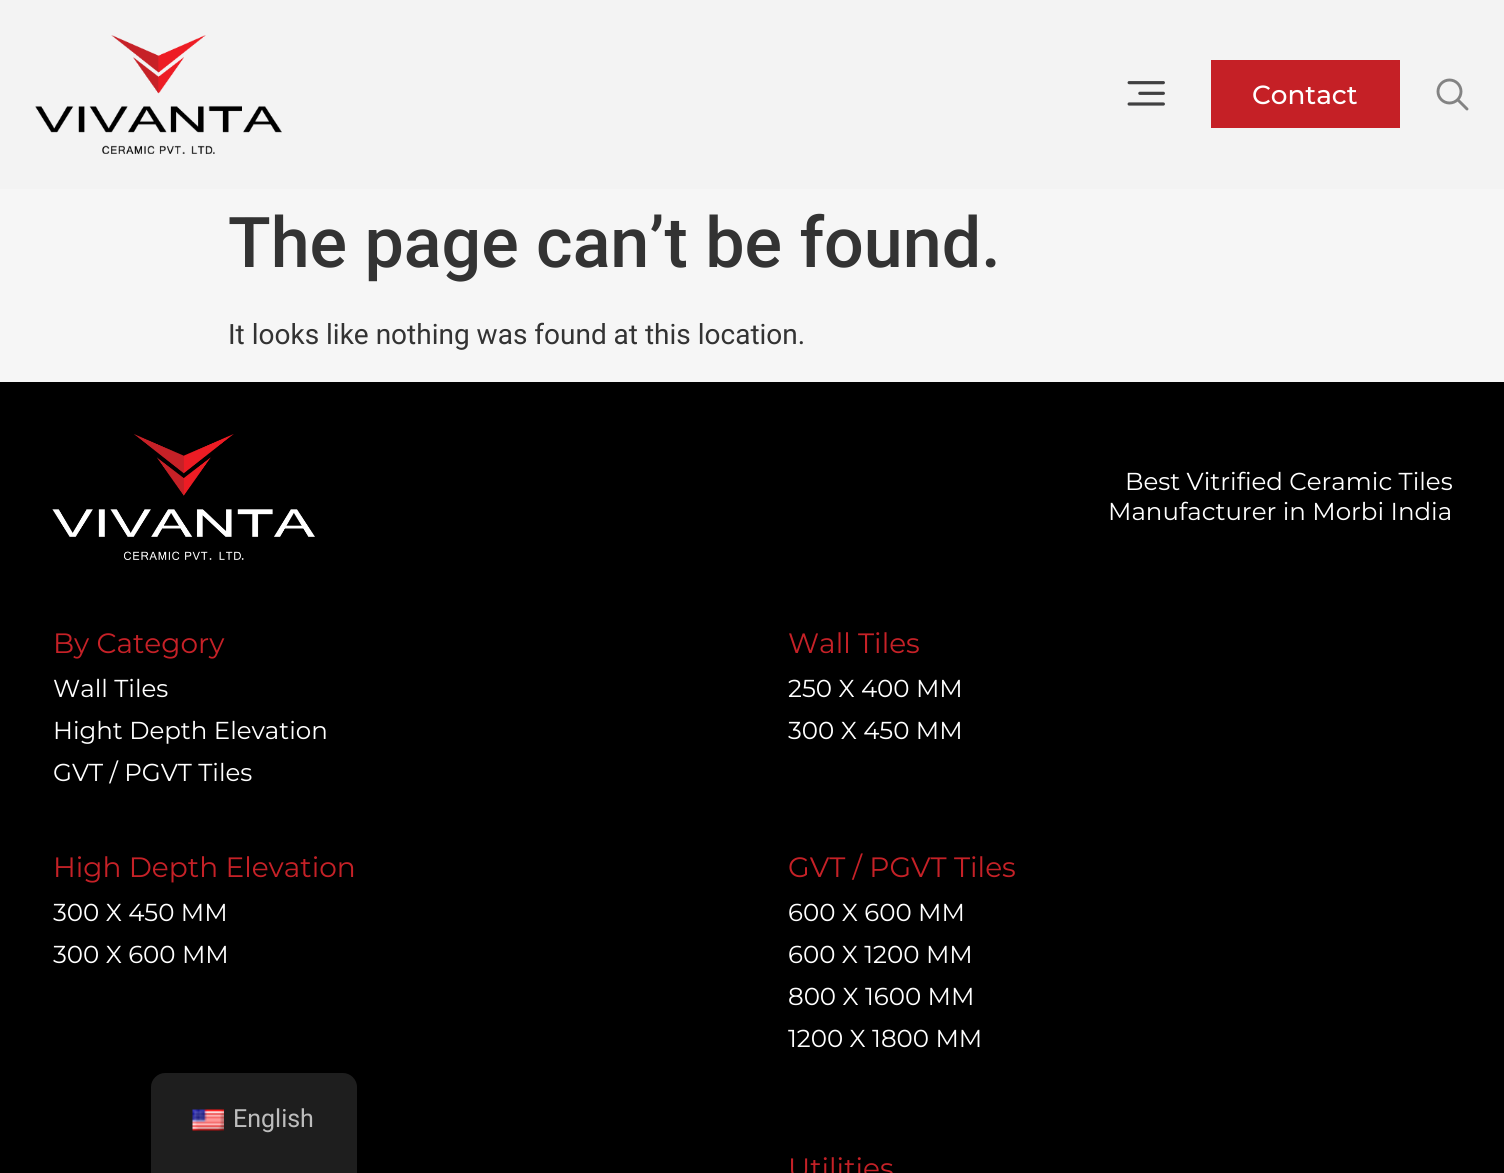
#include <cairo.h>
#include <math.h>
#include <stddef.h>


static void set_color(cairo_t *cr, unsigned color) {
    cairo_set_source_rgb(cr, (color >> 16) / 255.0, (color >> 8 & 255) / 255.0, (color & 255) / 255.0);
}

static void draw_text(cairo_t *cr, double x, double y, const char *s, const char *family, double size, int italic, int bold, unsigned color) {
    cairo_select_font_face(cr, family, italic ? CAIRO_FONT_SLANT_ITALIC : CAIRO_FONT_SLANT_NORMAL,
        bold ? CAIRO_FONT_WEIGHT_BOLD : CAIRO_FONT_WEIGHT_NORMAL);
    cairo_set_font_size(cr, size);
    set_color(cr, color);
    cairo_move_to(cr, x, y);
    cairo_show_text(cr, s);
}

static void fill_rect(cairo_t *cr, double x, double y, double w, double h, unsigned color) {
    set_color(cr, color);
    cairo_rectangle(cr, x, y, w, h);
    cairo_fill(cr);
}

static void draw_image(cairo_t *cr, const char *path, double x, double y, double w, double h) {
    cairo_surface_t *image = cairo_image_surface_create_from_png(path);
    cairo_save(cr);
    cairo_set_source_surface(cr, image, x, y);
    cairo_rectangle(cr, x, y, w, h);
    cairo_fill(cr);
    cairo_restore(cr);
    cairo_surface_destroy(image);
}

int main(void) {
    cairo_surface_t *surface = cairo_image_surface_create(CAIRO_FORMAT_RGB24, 1504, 1173);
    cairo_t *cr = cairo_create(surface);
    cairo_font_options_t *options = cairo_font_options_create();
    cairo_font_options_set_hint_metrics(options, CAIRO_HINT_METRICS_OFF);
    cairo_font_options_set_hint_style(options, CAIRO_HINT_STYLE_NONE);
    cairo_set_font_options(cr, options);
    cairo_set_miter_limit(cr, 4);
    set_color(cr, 0xF6F6F6);
    cairo_paint(cr);
    fill_rect(cr, 0, 0, 1504, 189, 0xF3F3F3);
    draw_image(cr, "assets/img1.png", 35, 35, 247, 119);
    draw_image(cr, "assets/img2.png", 1127, 81, 38, 25);
    fill_rect(cr, 1211, 60, 189, 68, 0xC52026);
    draw_text(cr, 1252, 104, "Contact", "Montserrat Medium", 26.25, 0, 0, 0xFFFFFF);
    cairo_new_path(cr);
    cairo_arc(cr, 1449.5, 91.5, 11.5, 0, 2 * M_PI);
    set_color(cr, 0x838383);
    cairo_set_line_width(cr, 2.9);
    cairo_stroke(cr);
    cairo_new_path(cr);
    cairo_move_to(cr, 1458.5, 100.5);
    cairo_line_to(cr, 1467, 109);
    cairo_set_line_cap(cr, CAIRO_LINE_CAP_ROUND);
    cairo_stroke(cr);
    draw_text(cr, 228, 267, "The page can’t be found.", "Roboto Medium", 70, 0, 0, 0x333333);
    draw_text(cr, 228, 344, "It looks like nothing was found at this location.", "Roboto", 28, 0, 0, 0x333333);
    fill_rect(cr, 0, 382, 1504, 791, 0x000000);
    draw_image(cr, "assets/img3.png", 52, 434, 263, 126);
    draw_text(cr, 1125, 490, "Best Vitrified Ceramic Tiles", "Montserrat", 24.5, 0, 0, 0xFFFFFF);
    draw_text(cr, 1108, 520, "Manufacturer in Morbi India", "Montserrat", 24.5, 0, 0, 0xFFFFFF);
    draw_text(cr, 53, 653, "By Category", "Montserrat", 28, 0, 0, 0xC62127);
    draw_text(cr, 53, 697, "Wall Tiles", "Montserrat", 24.5, 0, 0, 0xFFFFFF);
    draw_text(cr, 53, 739, "Hight Depth Elevation", "Montserrat", 24.5, 0, 0, 0xFFFFFF);
    draw_text(cr, 53, 781, "GVT / PGVT Tiles", "Montserrat", 24.5, 0, 0, 0xFFFFFF);
    draw_text(cr, 788, 653, "Wall Tiles", "Montserrat", 28, 0, 0, 0xC62127);
    draw_text(cr, 788, 697, "250 X 400 MM", "Montserrat", 24.5, 0, 0, 0xFFFFFF);
    draw_text(cr, 788, 739, "300 X 450 MM", "Montserrat", 24.5, 0, 0, 0xFFFFFF);
    draw_text(cr, 53, 877, "High Depth Elevation", "Montserrat", 28, 0, 0, 0xC62127);
    draw_text(cr, 53, 921, "300 X 450 MM", "Montserrat", 24.5, 0, 0, 0xFFFFFF);
    draw_text(cr, 53, 963, "300 X 600 MM", "Montserrat", 24.5, 0, 0, 0xFFFFFF);
    draw_text(cr, 788, 877, "GVT / PGVT Tiles", "Montserrat", 28, 0, 0, 0xC62127);
    draw_text(cr, 788, 921, "600 X 600 MM", "Montserrat", 24.5, 0, 0, 0xFFFFFF);
    draw_text(cr, 788, 963, "600 X 1200 MM", "Montserrat", 24.5, 0, 0, 0xFFFFFF);
    draw_text(cr, 788, 1005, "800 X 1600 MM", "Montserrat", 24.5, 0, 0, 0xFFFFFF);
    draw_text(cr, 788, 1047, "1200 X 1800 MM", "Montserrat", 24.5, 0, 0, 0xFFFFFF);
    draw_text(cr, 788, 1178, "Utilities", "Montserrat", 28, 0, 0, 0xC62127);
    set_color(cr, 0x1E1E1E);
    cairo_new_path(cr);
    cairo_move_to(cr, 165, 1073);
    cairo_line_to(cr, 343, 1073);
    cairo_curve_to(cr, 350.5, 1073, 357, 1079.5, 357, 1087);
    cairo_line_to(cr, 357, 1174);
    cairo_line_to(cr, 151, 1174);
    cairo_line_to(cr, 151, 1087);
    cairo_curve_to(cr, 151, 1079.5, 157.5, 1073, 165, 1073);
    cairo_close_path(cr);
    cairo_fill(cr);
    draw_image(cr, "assets/img4.png", 192, 1109, 32, 22);
    draw_text(cr, 233, 1127, "English", "Roboto", 25, 0, 0, 0xBDBDBD);
    cairo_surface_write_to_png(surface, "output.png");
    cairo_font_options_destroy(options);
    cairo_destroy(cr);
    cairo_surface_destroy(surface);
    return 0;
}
